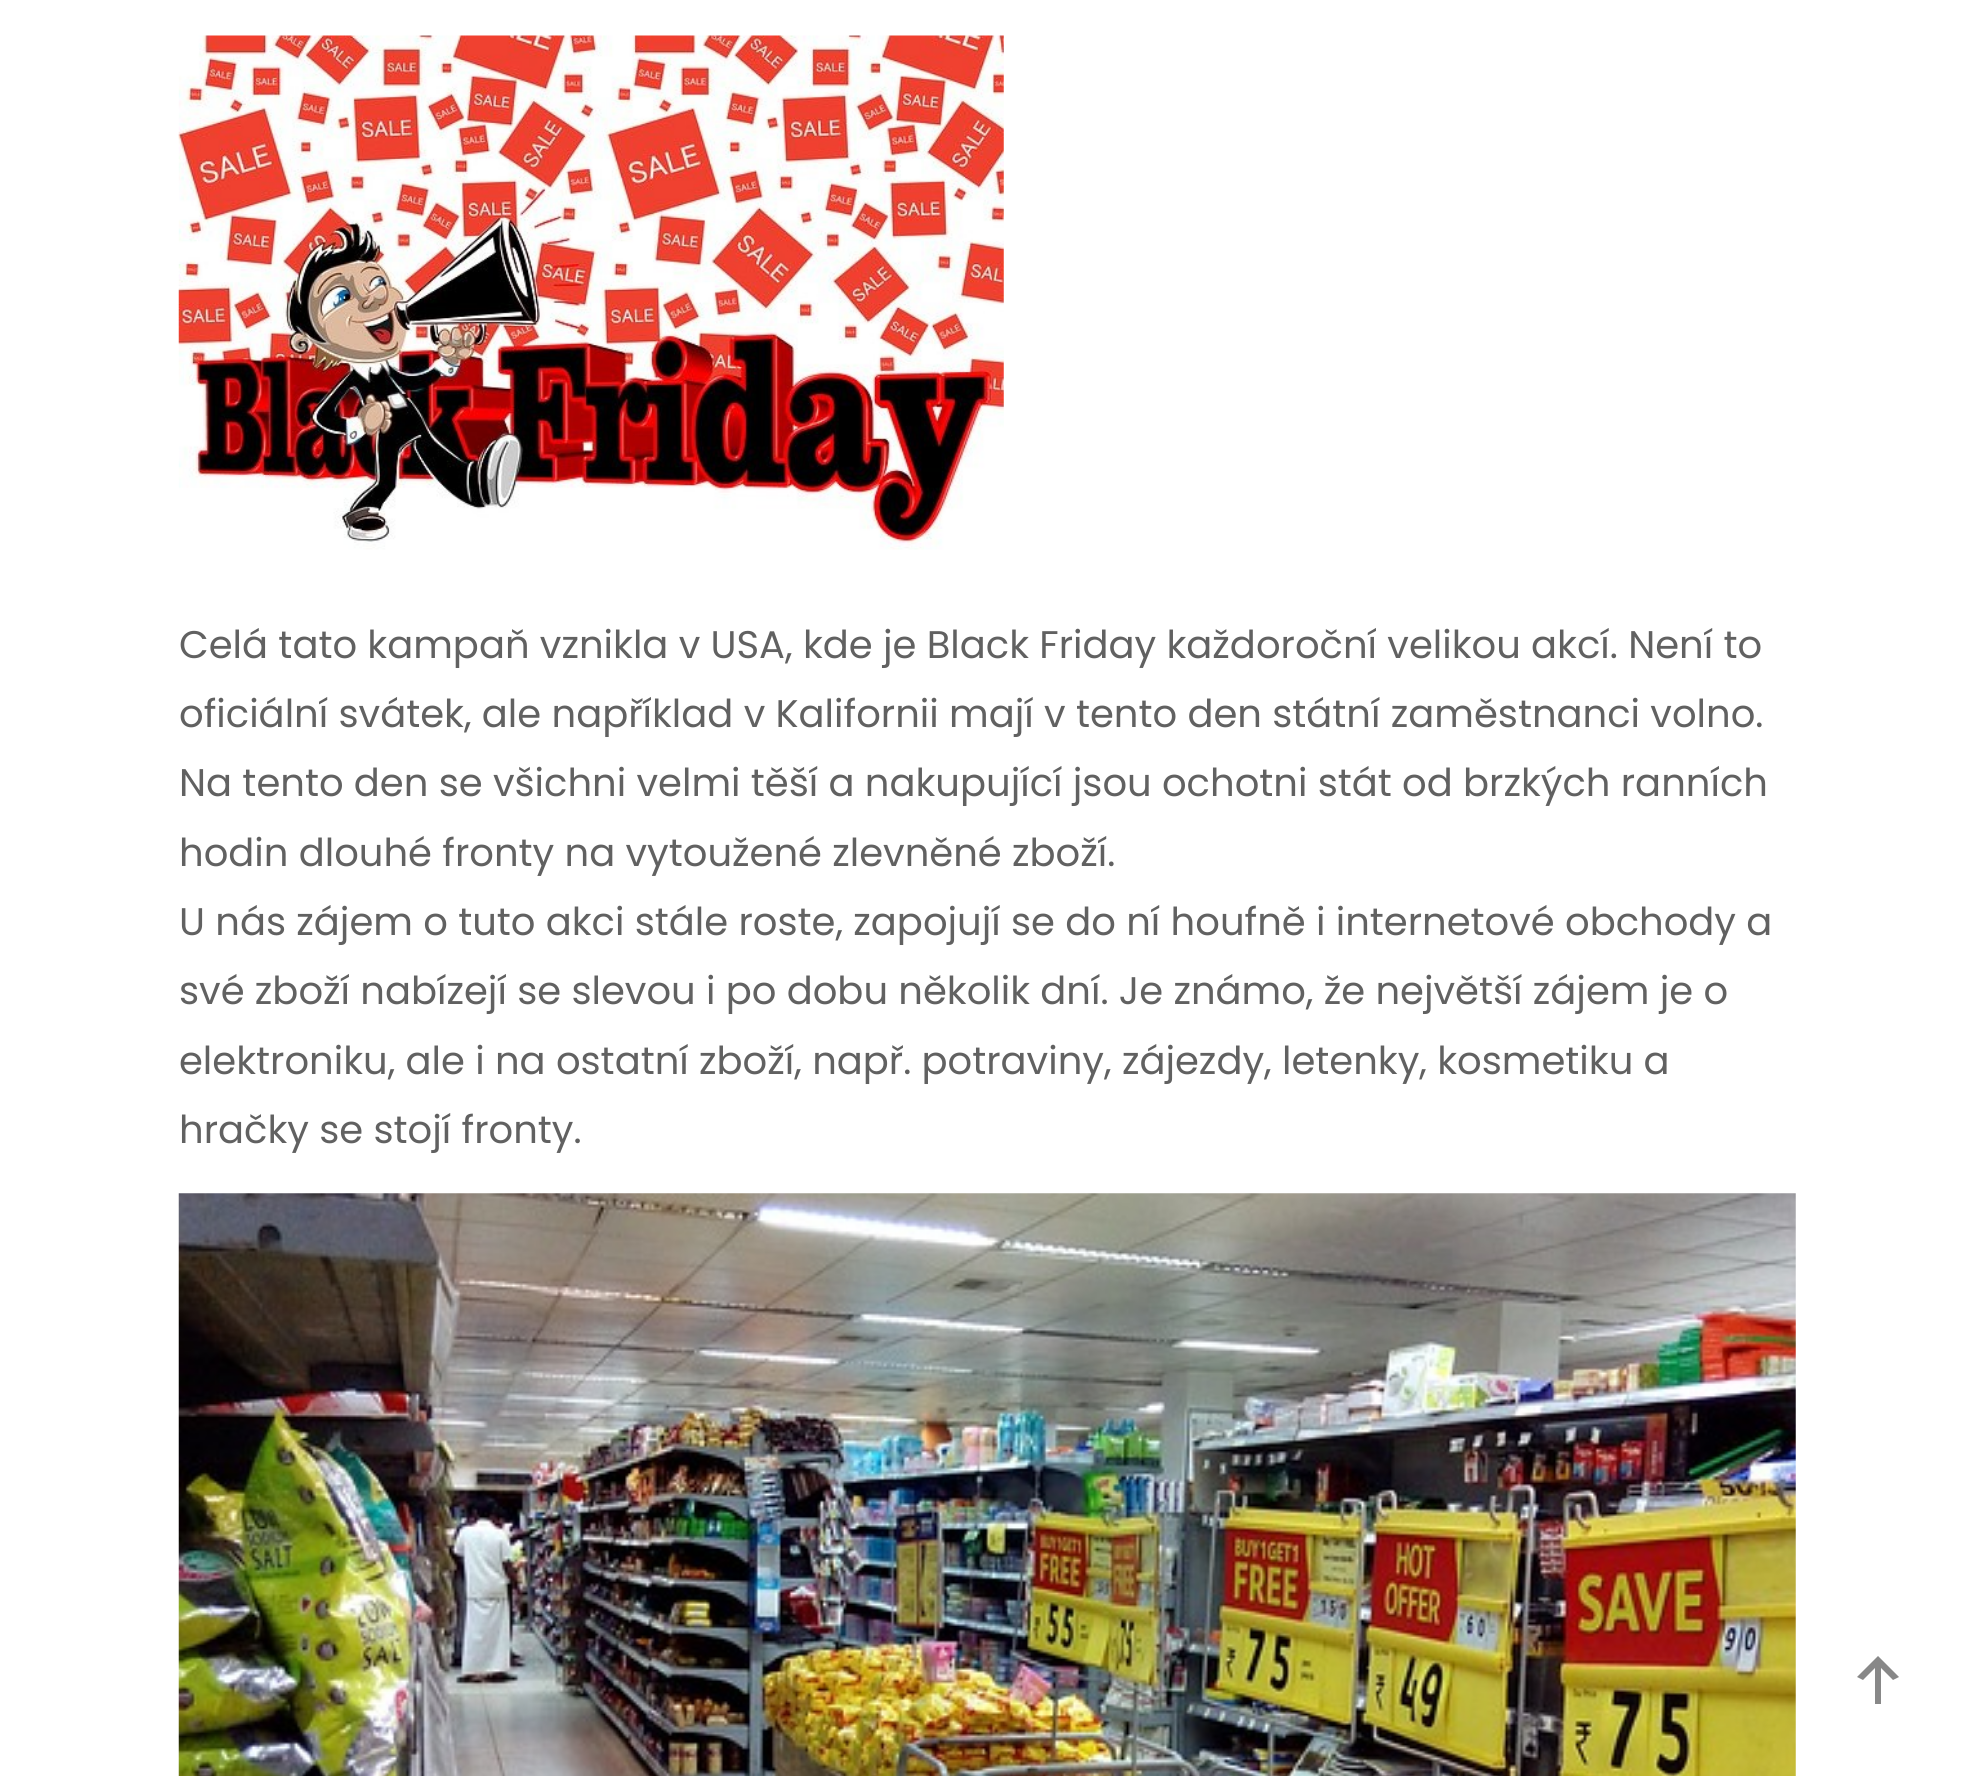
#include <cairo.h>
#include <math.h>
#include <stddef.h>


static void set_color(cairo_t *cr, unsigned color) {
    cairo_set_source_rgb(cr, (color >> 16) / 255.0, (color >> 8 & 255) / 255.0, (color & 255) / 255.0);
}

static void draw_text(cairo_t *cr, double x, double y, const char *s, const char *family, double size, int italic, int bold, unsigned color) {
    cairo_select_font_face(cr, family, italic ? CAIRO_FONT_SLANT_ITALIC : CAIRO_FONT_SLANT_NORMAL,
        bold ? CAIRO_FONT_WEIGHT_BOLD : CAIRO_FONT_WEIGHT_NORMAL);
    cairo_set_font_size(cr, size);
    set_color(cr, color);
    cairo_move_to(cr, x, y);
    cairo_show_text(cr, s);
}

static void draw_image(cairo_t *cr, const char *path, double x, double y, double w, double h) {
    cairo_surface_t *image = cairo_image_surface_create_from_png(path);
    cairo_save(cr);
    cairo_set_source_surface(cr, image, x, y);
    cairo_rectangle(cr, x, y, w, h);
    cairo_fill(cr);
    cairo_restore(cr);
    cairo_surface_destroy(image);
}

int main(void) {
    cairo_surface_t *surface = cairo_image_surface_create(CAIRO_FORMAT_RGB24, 1974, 1776);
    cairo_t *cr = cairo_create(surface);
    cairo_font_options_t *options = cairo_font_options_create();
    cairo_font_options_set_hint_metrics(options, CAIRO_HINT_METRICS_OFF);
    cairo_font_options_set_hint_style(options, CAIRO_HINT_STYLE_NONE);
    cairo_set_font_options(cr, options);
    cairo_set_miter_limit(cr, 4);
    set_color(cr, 0xFFFFFF);
    cairo_paint(cr);
    draw_image(cr, "assets/img1.png", 178, 35, 826, 515);
    draw_text(cr, 179, 658, "Celá tato kampaň vznikla v USA, kde je Black Friday každoroční velikou akcí. Není to", "Poppins", 38.5, 0, 0, 0x616161);
    draw_text(cr, 179, 727, "oficiální svátek, ale například v Kalifornii mají v tento den státní zaměstnanci volno.", "Poppins", 38.5, 0, 0, 0x616161);
    draw_text(cr, 179, 796, "Na tento den se všichni velmi těší a nakupující jsou ochotni stát od brzkých ranních", "Poppins", 38.5, 0, 0, 0x616161);
    draw_text(cr, 179, 866, "hodin dlouhé fronty na vytoužené zlevněné zboží.", "Poppins", 38.5, 0, 0, 0x616161);
    draw_text(cr, 179, 935, "U nás zájem o tuto akci stále roste, zapojují se do ní houfně i internetové obchody a", "Poppins", 38.5, 0, 0, 0x616161);
    draw_text(cr, 179, 1004, "své zboží nabízejí se slevou i po dobu několik dní. Je známo, že největší zájem je o", "Poppins", 38.5, 0, 0, 0x616161);
    draw_text(cr, 179, 1074, "elektroniku, ale i na ostatní zboží, např. potraviny, zájezdy, letenky, kosmetiku a", "Poppins", 38.5, 0, 0, 0x616161);
    draw_text(cr, 179, 1143, "hračky se stojí fronty.", "Poppins", 38.5, 0, 0, 0x616161);
    draw_image(cr, "assets/img2.png", 178, 1193, 1618, 583);
    set_color(cr, 0x888888);
    cairo_new_path(cr);
    cairo_move_to(cr, 1881, 1704);
    cairo_line_to(cr, 1875, 1704);
    cairo_line_to(cr, 1875, 1668);
    cairo_line_to(cr, 1863, 1680);
    cairo_line_to(cr, 1857, 1677);
    cairo_line_to(cr, 1878, 1656);
    cairo_line_to(cr, 1899, 1677);
    cairo_line_to(cr, 1893, 1680);
    cairo_line_to(cr, 1881, 1668);
    cairo_close_path(cr);
    cairo_fill(cr);
    cairo_surface_write_to_png(surface, "output.png");
    cairo_font_options_destroy(options);
    cairo_destroy(cr);
    cairo_surface_destroy(surface);
    return 0;
}
